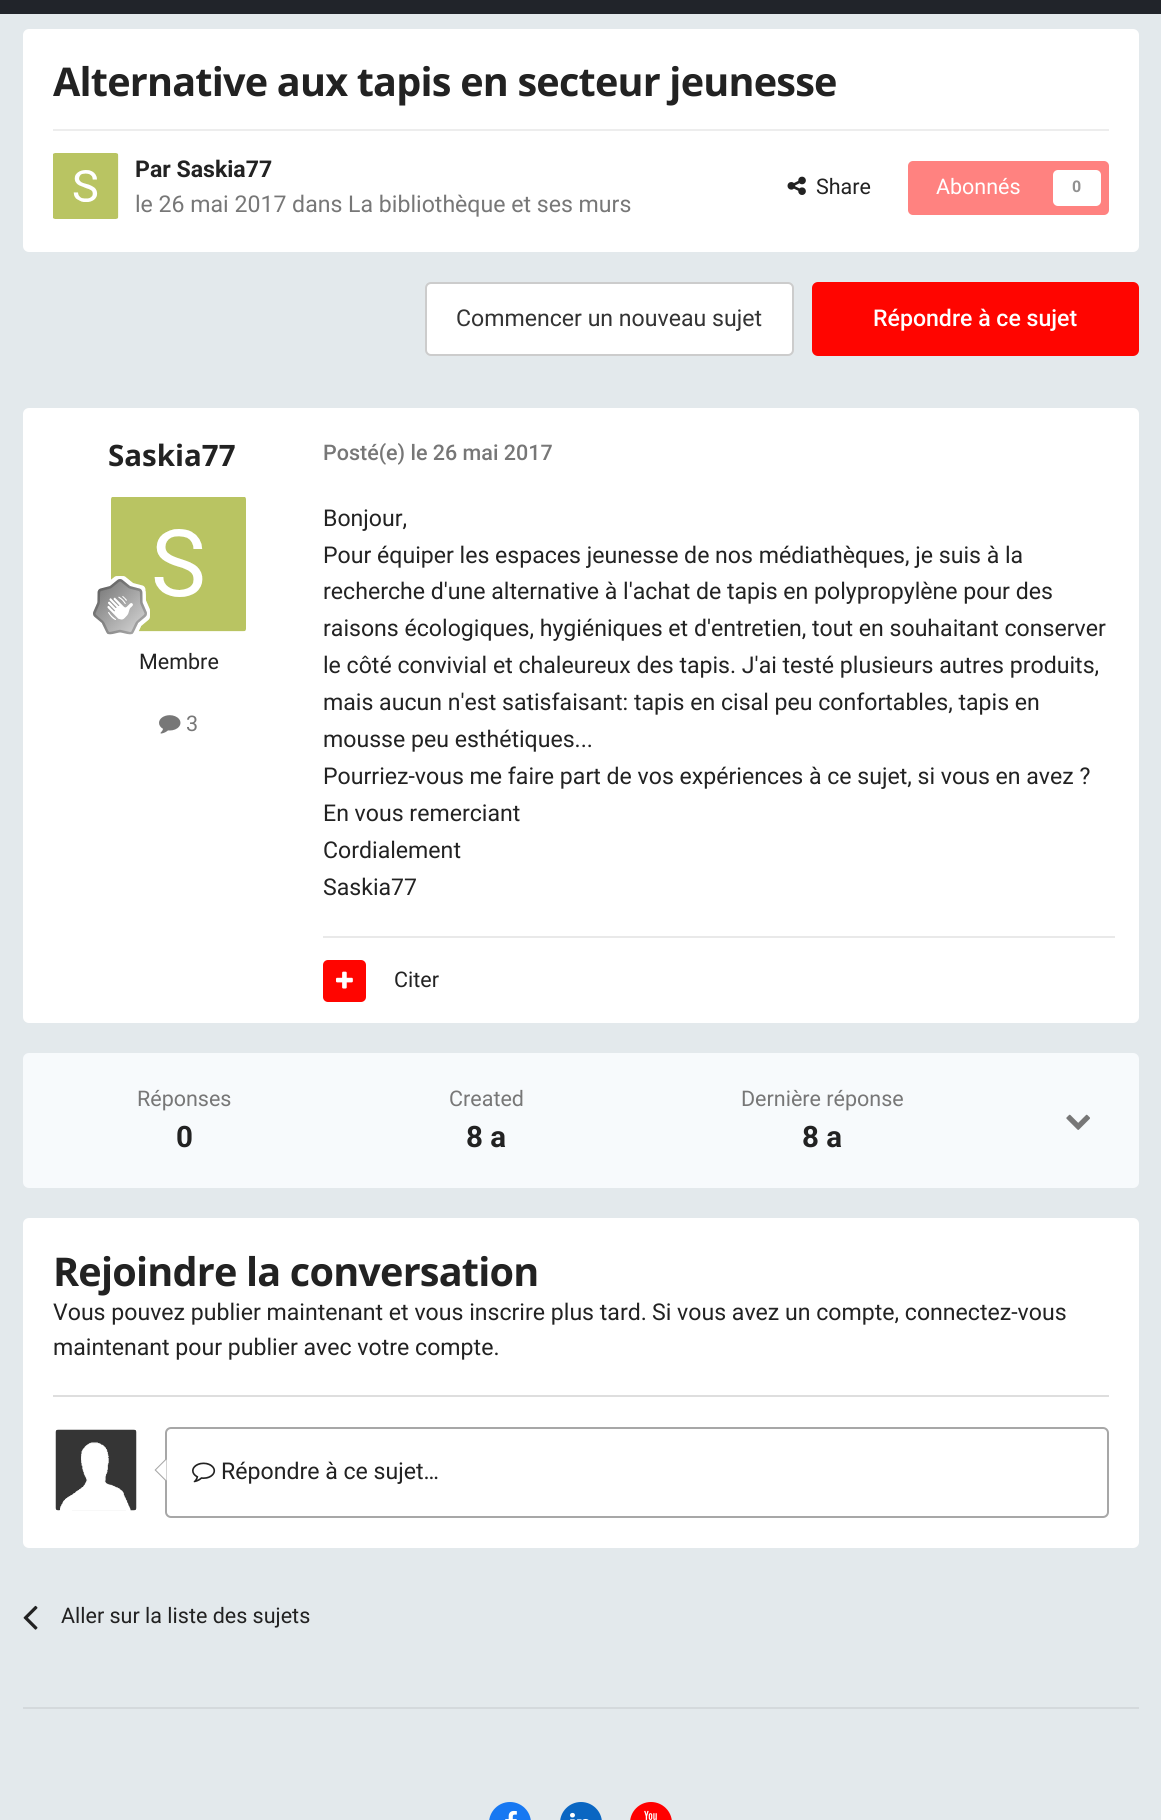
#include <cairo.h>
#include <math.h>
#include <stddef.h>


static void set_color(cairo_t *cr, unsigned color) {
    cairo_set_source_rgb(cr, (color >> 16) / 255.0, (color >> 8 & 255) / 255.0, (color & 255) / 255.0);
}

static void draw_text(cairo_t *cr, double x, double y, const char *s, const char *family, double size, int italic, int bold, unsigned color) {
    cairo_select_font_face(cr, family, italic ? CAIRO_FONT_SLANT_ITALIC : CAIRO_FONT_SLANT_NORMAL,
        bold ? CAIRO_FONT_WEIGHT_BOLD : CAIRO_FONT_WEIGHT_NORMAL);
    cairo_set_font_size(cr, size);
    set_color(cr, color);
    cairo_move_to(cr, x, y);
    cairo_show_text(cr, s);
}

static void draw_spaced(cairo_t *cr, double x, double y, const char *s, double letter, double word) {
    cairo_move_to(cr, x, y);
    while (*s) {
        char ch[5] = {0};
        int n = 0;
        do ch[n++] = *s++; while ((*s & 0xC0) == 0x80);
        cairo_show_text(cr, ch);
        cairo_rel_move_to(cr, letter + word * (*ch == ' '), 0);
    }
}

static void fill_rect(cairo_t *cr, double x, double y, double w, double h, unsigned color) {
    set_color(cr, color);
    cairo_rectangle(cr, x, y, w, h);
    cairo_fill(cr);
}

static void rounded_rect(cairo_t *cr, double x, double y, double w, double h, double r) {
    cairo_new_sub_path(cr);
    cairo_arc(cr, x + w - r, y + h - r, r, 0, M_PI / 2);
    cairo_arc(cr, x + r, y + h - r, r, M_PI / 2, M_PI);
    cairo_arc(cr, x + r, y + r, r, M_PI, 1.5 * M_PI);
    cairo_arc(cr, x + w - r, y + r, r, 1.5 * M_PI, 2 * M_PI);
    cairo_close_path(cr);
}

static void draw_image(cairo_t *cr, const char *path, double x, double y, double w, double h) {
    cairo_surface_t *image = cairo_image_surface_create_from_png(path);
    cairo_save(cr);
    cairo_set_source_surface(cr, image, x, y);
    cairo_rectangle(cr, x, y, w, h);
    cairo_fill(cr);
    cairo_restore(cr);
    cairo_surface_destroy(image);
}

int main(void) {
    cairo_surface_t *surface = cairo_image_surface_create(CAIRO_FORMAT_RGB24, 1161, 1820);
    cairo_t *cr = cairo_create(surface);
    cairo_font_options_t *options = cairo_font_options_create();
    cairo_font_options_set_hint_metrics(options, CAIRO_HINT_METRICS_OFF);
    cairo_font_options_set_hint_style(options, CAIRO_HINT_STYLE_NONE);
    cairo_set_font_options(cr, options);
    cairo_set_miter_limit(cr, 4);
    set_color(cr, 0xE3E9EC);
    cairo_paint(cr);
    fill_rect(cr, 0, 0, 1161, 14, 0x21242A);
    set_color(cr, 0xFFFFFF);
    rounded_rect(cr, 23, 29, 1116, 223, 6);
    cairo_fill(cr);
    cairo_select_font_face(cr, "Open Sans", CAIRO_FONT_SLANT_NORMAL, CAIRO_FONT_WEIGHT_BOLD);
    cairo_set_font_size(cr, 39.6);
    set_color(cr, 0x222222);
    draw_spaced(cr, 53, 96, "Alternative aux tapis en secteur jeunesse", -0.8, 0);
    fill_rect(cr, 53, 129, 1056, 2, 0xEDEDED);
    draw_image(cr, "assets/img1.png", 53, 153, 66, 66);
    draw_text(cr, 135, 177, "Par Saskia77", "Roboto", 23.1, 0, 1, 0x222222);
    draw_text(cr, 135, 212, "le 26 mai 2017 dans La bibliothèque et ses murs", "Roboto", 23.1, 0, 0, 0x777777);
    draw_image(cr, "assets/img2.png", 787, 176, 19, 19);
    draw_text(cr, 816, 194, "Share", "Roboto", 21.5, 0, 0, 0x222222);
    set_color(cr, 0xFF8280);
    rounded_rect(cr, 908, 161, 201, 54, 5);
    cairo_fill(cr);
    draw_text(cr, 936, 194, "Abonnés", "Roboto", 21.5, 0, 0, 0xFFFFFF);
    rounded_rect(cr, 1053, 170, 48, 36, 5);
    cairo_fill(cr);
    draw_text(cr, 1072, 192, "0", "Roboto", 16, 0, 1, 0x919191);
    set_color(cr, 0xFFFFFF);
    rounded_rect(cr, 426, 283, 367, 72, 5);
    cairo_fill_preserve(cr);
    set_color(cr, 0xCCCCCC);
    cairo_stroke(cr);
    draw_text(cr, 456, 326, "Commencer un nouveau sujet", "Roboto", 23.1, 0, 0, 0x333333);
    set_color(cr, 0xFF0500);
    rounded_rect(cr, 812, 282, 327, 74, 6);
    cairo_fill(cr);
    draw_text(cr, 873, 326, "Répondre à ce sujet", "Roboto Medium", 23.1, 0, 0, 0xFFFFFF);
    rounded_rect(cr, 23, 408, 1116, 615, 6);
    cairo_fill(cr);
    draw_text(cr, 108, 466, "Saskia77", "Open Sans", 29.5, 0, 1, 0x222222);
    draw_image(cr, "assets/img3.png", 111, 497, 135, 135);
    draw_image(cr, "assets/img4.png", 93, 576, 57, 59);
    draw_text(cr, 139, 669, "Membre", "Roboto", 21.5, 0, 0, 0x222222);
    draw_image(cr, "assets/img5.png", 159, 715, 22, 19);
    draw_text(cr, 186, 731, "3", "Roboto", 21.5, 0, 0, 0x777777);
    draw_text(cr, 323, 460, "Posté(e) le 26 mai 2017", "Roboto Medium", 21.5, 0, 0, 0x777777);
    draw_text(cr, 323, 526, "Bonjour,", "Roboto", 23.1, 0, 0, 0x222222);
    draw_text(cr, 323, 563, "Pour équiper les espaces jeunesse de nos médiathèques, je suis à la", "Roboto", 23.1, 0, 0, 0x222222);
    draw_text(cr, 323, 599, "recherche d'une alternative à l'achat de tapis en polypropylène pour des", "Roboto", 23.1, 0, 0, 0x222222);
    draw_text(cr, 323, 636, "raisons écologiques, hygiéniques et d'entretien, tout en souhaitant conserver", "Roboto", 23.1, 0, 0, 0x222222);
    draw_text(cr, 323, 673, "le côté convivial et chaleureux des tapis. J'ai testé plusieurs autres produits,", "Roboto", 23.1, 0, 0, 0x222222);
    draw_text(cr, 323, 710, "mais aucun n'est satisfaisant: tapis en cisal peu confortables, tapis en", "Roboto", 23.1, 0, 0, 0x222222);
    draw_text(cr, 323, 747, "mousse peu esthétiques...", "Roboto", 23.1, 0, 0, 0x222222);
    draw_text(cr, 323, 784, "Pourriez-vous me faire part de vos expériences à ce sujet, si vous en avez ?", "Roboto", 23.1, 0, 0, 0x222222);
    draw_text(cr, 323, 821, "En vous remerciant", "Roboto", 23.1, 0, 0, 0x222222);
    draw_text(cr, 323, 858, "Cordialement", "Roboto", 23.1, 0, 0, 0x222222);
    draw_text(cr, 323, 895, "Saskia77", "Roboto", 23.1, 0, 0, 0x222222);
    fill_rect(cr, 323, 936, 792, 2, 0xE9E9E9);
    set_color(cr, 0xFF0500);
    rounded_rect(cr, 323, 960, 43, 42, 5);
    cairo_fill(cr);
    draw_image(cr, "assets/img6.png", 336, 971, 17, 18);
    draw_text(cr, 394, 987, "Citer", "Roboto", 21.5, 0, 0, 0x222222);
    set_color(cr, 0xF7FAFC);
    rounded_rect(cr, 23, 1053, 1116, 135, 6);
    cairo_fill(cr);
    draw_text(cr, 137, 1106, "Réponses", "Roboto", 21.5, 0, 0, 0x777777);
    draw_text(cr, 176, 1147, "0", "Roboto", 29.5, 0, 1, 0x222222);
    draw_text(cr, 449, 1106, "Created", "Roboto", 21.5, 0, 0, 0x777777);
    draw_text(cr, 466, 1147, "8 a", "Roboto", 29.5, 0, 1, 0x222222);
    draw_text(cr, 741, 1106, "Dernière réponse", "Roboto", 21.5, 0, 0, 0x777777);
    draw_text(cr, 802, 1147, "8 a", "Roboto", 29.5, 0, 1, 0x222222);
    draw_image(cr, "assets/img7.png", 1066, 1114, 24, 16);
    set_color(cr, 0xFFFFFF);
    rounded_rect(cr, 23, 1218, 1116, 330, 6);
    cairo_fill(cr);
    fill_rect(cr, 53, 1395, 1056, 2, 0xDEDEDE);
    cairo_select_font_face(cr, "Open Sans", CAIRO_FONT_SLANT_NORMAL, CAIRO_FONT_WEIGHT_BOLD);
    cairo_set_font_size(cr, 39.6);
    set_color(cr, 0x222222);
    draw_spaced(cr, 53, 1286, "Rejoindre la conversation", -0.8, 0);
    draw_text(cr, 53, 1320, "Vous pouvez publier maintenant et vous inscrire plus tard.", "Roboto", 23.1, 0, 0, 0x222222);
    draw_text(cr, 652, 1320, "Si vous avez un compte, connectez-vous", "Roboto", 23.1, 0, 0, 0x222222);
    draw_text(cr, 53, 1355, "maintenant pour publier avec votre compte.", "Roboto", 23.1, 0, 0, 0x222222);
    draw_image(cr, "assets/img8.png", 55, 1429, 82, 82);
    rounded_rect(cr, 166, 1428, 942, 89, 5);
    set_color(cr, 0xA7A7A7);
    cairo_stroke(cr);
    cairo_new_path(cr);
    cairo_move_to(cr, 165, 1459.5);
    cairo_line_to(cr, 165, 1480.5);
    cairo_line_to(cr, 154.5, 1470);
    cairo_close_path(cr);
    cairo_fill(cr);
    set_color(cr, 0xFFFFFF);
    cairo_new_path(cr);
    cairo_move_to(cr, 166.5, 1459.5);
    cairo_line_to(cr, 166.5, 1480.5);
    cairo_line_to(cr, 156, 1470);
    cairo_close_path(cr);
    cairo_fill(cr);
    draw_image(cr, "assets/img9.png", 192, 1462, 24, 21);
    draw_text(cr, 221, 1479, "Répondre à ce sujet…", "Roboto", 23.1, 0, 0, 0x222222);
    draw_image(cr, "assets/img10.png", 23, 1605, 15, 25);
    draw_text(cr, 61, 1623, "Aller sur la liste des sujets", "Roboto", 21.5, 0, 0, 0x222222);
    fill_rect(cr, 23, 1707, 1116, 2, 0xD4D9DC);
    set_color(cr, 0x1778F2);
    rounded_rect(cr, 489, 1802, 42, 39, 21);
    cairo_fill(cr);
    draw_image(cr, "assets/img11.png", 505, 1810, 12, 10);
    set_color(cr, 0x0A66C2);
    rounded_rect(cr, 560, 1802, 42, 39, 21);
    cairo_fill(cr);
    draw_image(cr, "assets/img12.png", 570, 1812, 19, 8);
    set_color(cr, 0xFF0000);
    rounded_rect(cr, 630, 1802, 42, 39, 21);
    cairo_fill(cr);
    draw_image(cr, "assets/img13.png", 644, 1810, 13, 10);
    cairo_surface_write_to_png(surface, "output.png");
    cairo_font_options_destroy(options);
    cairo_destroy(cr);
    cairo_surface_destroy(surface);
    return 0;
}
